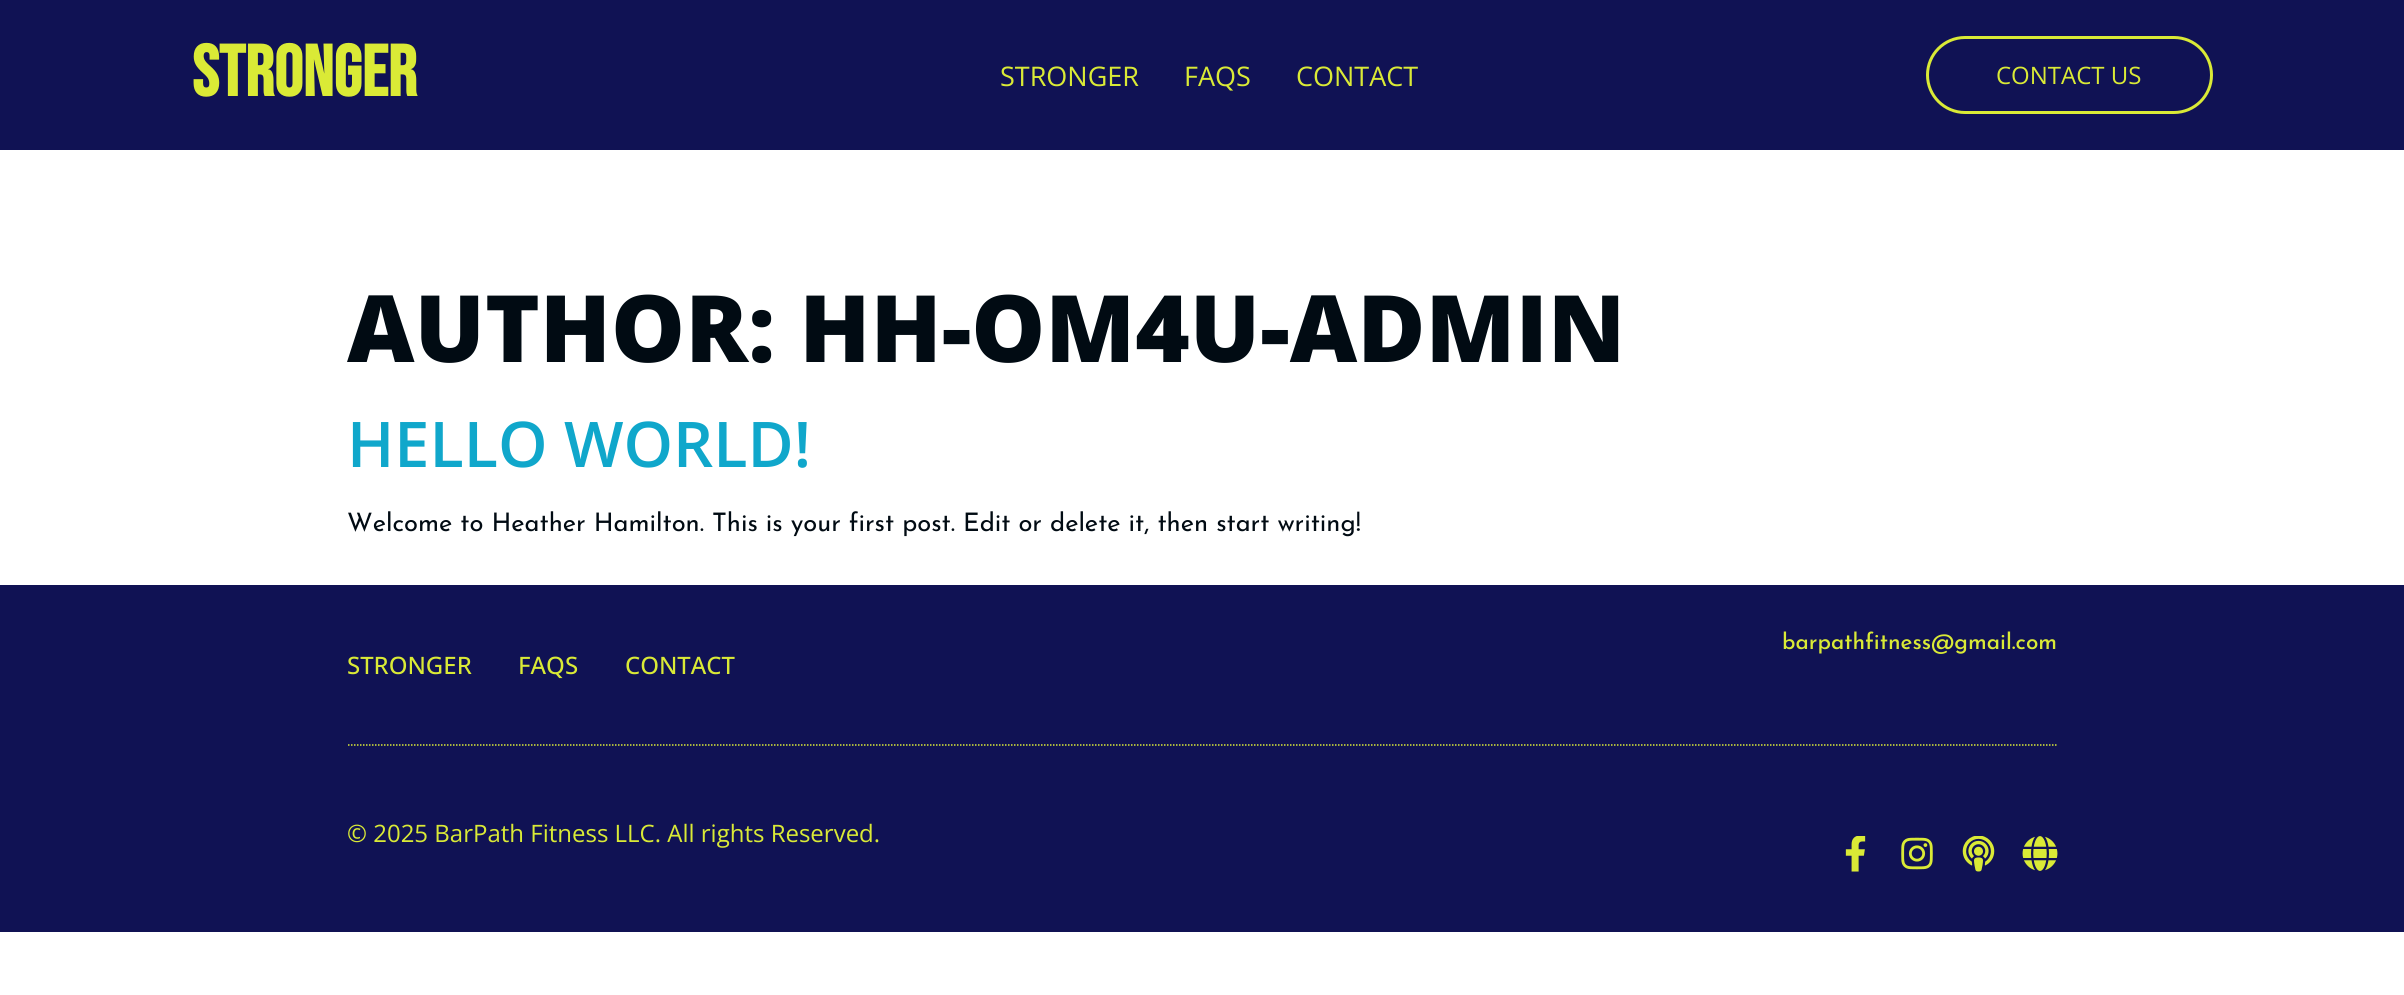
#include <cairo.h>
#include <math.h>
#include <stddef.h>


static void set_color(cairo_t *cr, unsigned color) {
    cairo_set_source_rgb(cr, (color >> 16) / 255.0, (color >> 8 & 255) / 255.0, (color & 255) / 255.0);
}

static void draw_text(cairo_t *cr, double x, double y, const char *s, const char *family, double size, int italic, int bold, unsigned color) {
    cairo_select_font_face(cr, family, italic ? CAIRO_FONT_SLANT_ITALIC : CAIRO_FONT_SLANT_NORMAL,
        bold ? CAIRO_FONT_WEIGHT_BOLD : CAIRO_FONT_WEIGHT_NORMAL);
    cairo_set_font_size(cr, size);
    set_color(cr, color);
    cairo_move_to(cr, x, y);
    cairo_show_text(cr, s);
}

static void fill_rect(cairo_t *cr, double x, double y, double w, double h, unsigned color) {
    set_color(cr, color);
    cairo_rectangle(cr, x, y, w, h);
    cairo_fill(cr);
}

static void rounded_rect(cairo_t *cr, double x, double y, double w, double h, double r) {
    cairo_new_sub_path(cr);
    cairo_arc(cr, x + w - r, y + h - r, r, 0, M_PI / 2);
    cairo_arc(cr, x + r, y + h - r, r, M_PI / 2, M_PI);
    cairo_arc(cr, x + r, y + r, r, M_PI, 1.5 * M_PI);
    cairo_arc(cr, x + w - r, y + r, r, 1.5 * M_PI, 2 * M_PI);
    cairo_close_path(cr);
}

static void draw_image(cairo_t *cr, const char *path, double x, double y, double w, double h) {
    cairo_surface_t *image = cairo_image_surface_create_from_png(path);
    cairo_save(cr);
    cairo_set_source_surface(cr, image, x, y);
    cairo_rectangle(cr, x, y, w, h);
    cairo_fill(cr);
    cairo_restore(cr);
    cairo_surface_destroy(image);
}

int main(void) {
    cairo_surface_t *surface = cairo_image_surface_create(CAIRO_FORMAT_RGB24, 2404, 995);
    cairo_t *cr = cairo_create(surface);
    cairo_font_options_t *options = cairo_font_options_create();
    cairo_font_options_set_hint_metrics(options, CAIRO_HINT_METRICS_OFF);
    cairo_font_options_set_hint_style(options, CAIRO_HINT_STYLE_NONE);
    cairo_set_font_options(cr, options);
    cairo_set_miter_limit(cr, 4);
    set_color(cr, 0xFFFFFF);
    cairo_paint(cr);
    fill_rect(cr, 0, 0, 2404, 150, 0x101254);
    draw_text(cr, 192, 96, "STRONGER", "Bebas Neue", 72, 0, 1, 0xDAEA36);
    draw_text(cr, 1000, 86, "STRONGER", "Open Sans", 27, 0, 0, 0xDAEA36);
    draw_text(cr, 1184, 86, "FAQS", "Open Sans", 27, 0, 0, 0xDAEA36);
    draw_text(cr, 1296, 86, "CONTACT", "Open Sans", 27, 0, 0, 0xDAEA36);
    rounded_rect(cr, 1927.5, 37.5, 284, 75, 37.5);
    cairo_set_line_width(cr, 3);
    cairo_stroke(cr);
    draw_text(cr, 1996, 84, "CONTACT US", "Open Sans", 24, 0, 0, 0xDAEA36);
    draw_text(cr, 347, 362, "AUTHOR: HH-OM4U-ADMIN", "Open Sans ExtraBold", 93, 0, 0, 0x010B13);
    draw_text(cr, 347, 467, "HELLO WORLD!", "Open Sans SemiBold", 63, 0, 0, 0x10A7CB);
    draw_text(cr, 347, 531, "Welcome to Heather Hamilton. This is your first post. Edit or delete it, then start writing!", "Josefin Sans", 25.5, 0, 0, 0x010B13);
    fill_rect(cr, 0, 585, 2404, 347, 0x101254);
    cairo_new_path(cr);
    cairo_move_to(cr, 348, 745);
    cairo_line_to(cr, 2058, 745);
    set_color(cr, 0xDAEA36);
    cairo_set_line_width(cr, 1.5);
    cairo_set_dash(cr, (double[]){1.5, 1.5}, 2, 0);
    cairo_stroke(cr);
    draw_text(cr, 1782, 649, "barpathfitness@gmail.com", "Josefin Sans Medium", 22.5, 0, 0, 0xDAEA36);
    draw_text(cr, 347, 674, "STRONGER", "Open Sans Medium", 24, 0, 0, 0xDAEA36);
    draw_text(cr, 518, 674, "FAQS", "Open Sans Medium", 24, 0, 0, 0xDAEA36);
    draw_text(cr, 625, 674, "CONTACT", "Open Sans Medium", 24, 0, 0, 0xDAEA36);
    draw_text(cr, 347, 842, "© 2025 BarPath Fitness LLC. All rights Reserved.", "Open Sans", 24, 0, 0, 0xDAEA36);
    draw_image(cr, "assets/img1.png", 1845, 836, 21, 36);
    draw_image(cr, "assets/img2.png", 1901, 837, 32, 33);
    draw_image(cr, "assets/img3.png", 1962, 836, 33, 36);
    draw_image(cr, "assets/img4.png", 2022, 836, 36, 35);
    cairo_surface_write_to_png(surface, "output.png");
    cairo_font_options_destroy(options);
    cairo_destroy(cr);
    cairo_surface_destroy(surface);
    return 0;
}
